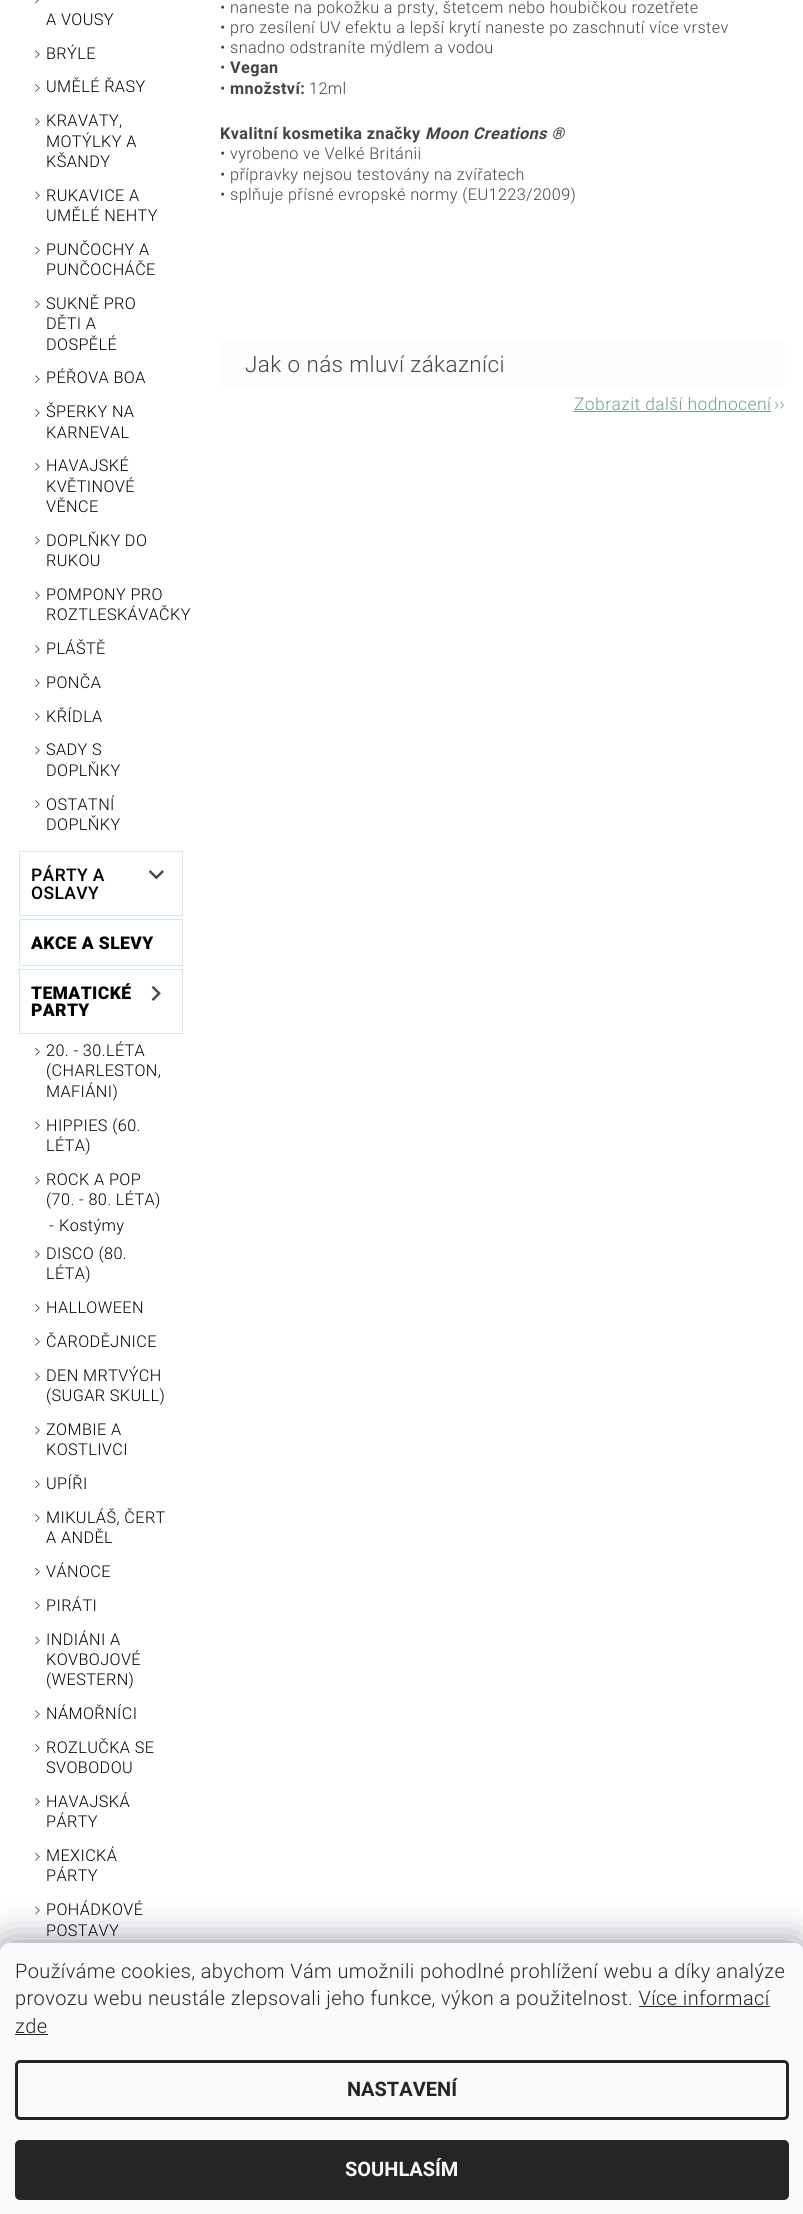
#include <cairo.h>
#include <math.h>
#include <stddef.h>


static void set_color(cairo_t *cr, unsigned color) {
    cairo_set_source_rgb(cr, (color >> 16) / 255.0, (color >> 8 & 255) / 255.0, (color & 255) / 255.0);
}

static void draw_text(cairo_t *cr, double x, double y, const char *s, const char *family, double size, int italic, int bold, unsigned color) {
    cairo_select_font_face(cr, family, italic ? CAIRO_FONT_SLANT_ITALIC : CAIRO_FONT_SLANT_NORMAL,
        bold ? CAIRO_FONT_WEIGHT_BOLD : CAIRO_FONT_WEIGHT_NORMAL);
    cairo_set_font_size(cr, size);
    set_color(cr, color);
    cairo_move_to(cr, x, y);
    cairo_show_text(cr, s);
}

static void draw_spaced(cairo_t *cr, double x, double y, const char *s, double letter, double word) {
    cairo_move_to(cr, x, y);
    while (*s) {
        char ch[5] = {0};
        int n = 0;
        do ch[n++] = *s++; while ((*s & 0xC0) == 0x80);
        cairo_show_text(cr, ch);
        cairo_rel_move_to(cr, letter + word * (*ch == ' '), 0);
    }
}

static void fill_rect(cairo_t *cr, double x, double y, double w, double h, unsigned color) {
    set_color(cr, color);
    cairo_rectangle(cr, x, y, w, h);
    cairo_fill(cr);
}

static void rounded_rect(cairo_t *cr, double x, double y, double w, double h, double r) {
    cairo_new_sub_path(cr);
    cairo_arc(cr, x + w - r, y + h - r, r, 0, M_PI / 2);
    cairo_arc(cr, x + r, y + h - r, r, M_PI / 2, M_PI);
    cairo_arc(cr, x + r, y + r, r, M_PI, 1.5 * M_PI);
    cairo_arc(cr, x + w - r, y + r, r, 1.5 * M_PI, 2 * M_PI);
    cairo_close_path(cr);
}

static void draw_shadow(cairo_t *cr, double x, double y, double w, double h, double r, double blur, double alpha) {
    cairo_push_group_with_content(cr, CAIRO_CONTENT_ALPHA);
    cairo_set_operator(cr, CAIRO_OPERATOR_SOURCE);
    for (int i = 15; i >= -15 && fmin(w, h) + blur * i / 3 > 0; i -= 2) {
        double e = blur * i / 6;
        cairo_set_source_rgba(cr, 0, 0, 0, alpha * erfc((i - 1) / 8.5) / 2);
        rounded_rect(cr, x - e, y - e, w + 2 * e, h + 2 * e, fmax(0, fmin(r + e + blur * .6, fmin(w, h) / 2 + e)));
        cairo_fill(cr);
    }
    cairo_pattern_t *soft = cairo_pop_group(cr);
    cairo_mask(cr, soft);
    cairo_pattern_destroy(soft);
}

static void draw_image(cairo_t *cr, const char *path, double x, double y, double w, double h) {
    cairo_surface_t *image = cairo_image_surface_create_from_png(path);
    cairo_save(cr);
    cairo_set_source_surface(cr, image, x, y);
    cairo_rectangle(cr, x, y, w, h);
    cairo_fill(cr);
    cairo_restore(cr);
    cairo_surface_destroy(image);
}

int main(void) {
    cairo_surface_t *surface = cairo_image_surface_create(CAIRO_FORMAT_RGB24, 803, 2214);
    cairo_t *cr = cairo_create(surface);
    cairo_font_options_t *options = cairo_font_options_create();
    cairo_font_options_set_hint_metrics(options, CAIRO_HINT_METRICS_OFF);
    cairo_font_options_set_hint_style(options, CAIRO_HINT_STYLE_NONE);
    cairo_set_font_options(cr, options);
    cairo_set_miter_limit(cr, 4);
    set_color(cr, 0xFFFFFF);
    cairo_paint(cr);
    draw_image(cr, "assets/img1.png", 35, 0, 4, 3);
    cairo_select_font_face(cr, "Roboto Light", CAIRO_FONT_SLANT_NORMAL, CAIRO_FONT_WEIGHT_NORMAL);
    cairo_set_font_size(cr, 16.25);
    set_color(cr, 0x000000);
    draw_spaced(cr, 46, 25, "A VOUSY", 0.4, 0);
    draw_image(cr, "assets/img2.png", 35, 50, 5, 8);
    draw_spaced(cr, 46, 59, "BRÝLE", 0.4, 0);
    draw_image(cr, "assets/img3.png", 35, 84, 5, 8);
    draw_spaced(cr, 46, 92, "UMĚLÉ ŘASY", 0.4, 0);
    draw_image(cr, "assets/img4.png", 35, 118, 5, 8);
    draw_spaced(cr, 46, 126, "KRAVATY,", 0.4, 0);
    draw_spaced(cr, 46, 147, "MOTÝLKY A", 0.4, 0);
    draw_spaced(cr, 46, 167, "KŠANDY", 0.4, 0);
    draw_image(cr, "assets/img5.png", 35, 191, 5, 9);
    draw_spaced(cr, 46, 201, "RUKAVICE A", 0.4, 0);
    draw_spaced(cr, 46, 221, "UMĚLÉ NEHTY", 0.4, 0);
    draw_image(cr, "assets/img5.png", 35, 246, 5, 9);
    draw_spaced(cr, 46, 255, "PUNČOCHY A", 0.4, 0);
    draw_spaced(cr, 46, 275, "PUNČOCHÁČE", 0.4, 0);
    draw_image(cr, "assets/img2.png", 35, 300, 5, 8);
    draw_spaced(cr, 46, 309, "SUKNĚ PRO", 0.4, 0);
    draw_spaced(cr, 46, 329, "DĚTI A", 0.4, 0);
    draw_spaced(cr, 46, 350, "DOSPĚLÉ", 0.4, 0);
    draw_image(cr, "assets/img2.png", 35, 375, 5, 8);
    draw_spaced(cr, 46, 383, "PÉŘOVA BOA", 0.4, 0);
    draw_image(cr, "assets/img3.png", 35, 409, 5, 8);
    draw_spaced(cr, 46, 417, "ŠPERKY NA", 0.4, 0);
    draw_spaced(cr, 46, 438, "KARNEVAL", 0.4, 0);
    draw_image(cr, "assets/img4.png", 35, 463, 5, 8);
    draw_spaced(cr, 46, 471, "HAVAJSKÉ", 0.4, 0);
    draw_spaced(cr, 46, 492, "KVĚTINOVÉ", 0.4, 0);
    draw_spaced(cr, 46, 512, "VĚNCE", 0.4, 0);
    draw_image(cr, "assets/img5.png", 35, 536, 5, 9);
    draw_spaced(cr, 46, 546, "DOPLŇKY DO", 0.4, 0);
    draw_spaced(cr, 46, 566, "RUKOU", 0.4, 0);
    draw_image(cr, "assets/img5.png", 35, 591, 5, 9);
    draw_spaced(cr, 46, 600, "POMPONY PRO", 0.4, 0);
    draw_spaced(cr, 46, 620, "ROZTLESKÁVAČKY", 0.4, 0);
    draw_image(cr, "assets/img2.png", 35, 645, 5, 8);
    draw_spaced(cr, 46, 654, "PLÁŠTĚ", 0.4, 0);
    draw_image(cr, "assets/img3.png", 35, 679, 5, 8);
    draw_spaced(cr, 46, 688, "PONČA", 0.4, 0);
    draw_image(cr, "assets/img4.png", 35, 713, 5, 8);
    draw_spaced(cr, 46, 722, "KŘÍDLA", 0.4, 0);
    draw_image(cr, "assets/img5.png", 35, 746, 5, 9);
    draw_spaced(cr, 46, 755, "SADY S", 0.4, 0);
    draw_spaced(cr, 46, 776, "DOPLŇKY", 0.4, 0);
    draw_image(cr, "assets/img2.png", 35, 800, 5, 8);
    draw_spaced(cr, 46, 810, "OSTATNÍ", 0.4, 0);
    draw_spaced(cr, 46, 830, "DOPLŇKY", 0.4, 0);
    cairo_rectangle(cr, 19.5, 851.5, 163, 64);
    set_color(cr, 0xD2EAE7);
    cairo_set_line_width(cr, 1);
    cairo_stroke(cr);
    cairo_select_font_face(cr, "Roboto Medium", CAIRO_FONT_SLANT_NORMAL, CAIRO_FONT_WEIGHT_NORMAL);
    cairo_set_font_size(cr, 17.5);
    set_color(cr, 0x000000);
    draw_spaced(cr, 31, 881, "PÁRTY A", 0.4, 0);
    draw_spaced(cr, 31, 899, "OSLAVY", 0.4, 0);
    draw_image(cr, "assets/img6.png", 148, 870, 16, 10);
    cairo_rectangle(cr, 19.5, 919.5, 163, 46);
    set_color(cr, 0xD2EAE7);
    cairo_stroke(cr);
    cairo_select_font_face(cr, "Roboto Black", CAIRO_FONT_SLANT_NORMAL, CAIRO_FONT_WEIGHT_NORMAL);
    set_color(cr, 0x000000);
    draw_spaced(cr, 31, 949, "AKCE A SLEVY", 0.4, 0);
    cairo_rectangle(cr, 19.5, 969.5, 163, 64);
    set_color(cr, 0xD2EAE7);
    cairo_stroke(cr);
    set_color(cr, 0x000000);
    draw_spaced(cr, 31, 999, "TEMATICKÉ", 0.4, 0);
    draw_spaced(cr, 31, 1016, "PARTY", 0.4, 0);
    draw_image(cr, "assets/img7.png", 151, 985, 10, 16);
    draw_image(cr, "assets/img4.png", 35, 1048, 5, 8);
    cairo_select_font_face(cr, "Roboto Light", CAIRO_FONT_SLANT_NORMAL, CAIRO_FONT_WEIGHT_NORMAL);
    cairo_set_font_size(cr, 16.25);
    draw_spaced(cr, 46, 1056, "20. - 30.LÉTA", 0.4, 0);
    draw_spaced(cr, 46, 1076, "(CHARLESTON,", 0.4, 0);
    draw_spaced(cr, 46, 1097, "MAFIÁNI)", 0.4, 0);
    draw_image(cr, "assets/img5.png", 35, 1121, 5, 9);
    draw_spaced(cr, 46, 1131, "HIPPIES (60.", 0.4, 0);
    draw_spaced(cr, 46, 1151, "LÉTA)", 0.4, 0);
    draw_image(cr, "assets/img5.png", 35, 1176, 5, 9);
    draw_spaced(cr, 46, 1185, "ROCK A POP", 0.4, 0);
    draw_spaced(cr, 46, 1205, "(70. - 80. LÉTA)", 0.4, 0);
    draw_spaced(cr, 49, 1231, "-", 0.4, 0);
    draw_spaced(cr, 59, 1231, "Kostýmy", 0.4, 0);
    draw_image(cr, "assets/img2.png", 35, 1250, 5, 8);
    draw_spaced(cr, 46, 1259, "DISCO (80.", 0.4, 0);
    draw_spaced(cr, 46, 1279, "LÉTA)", 0.4, 0);
    draw_image(cr, "assets/img3.png", 35, 1304, 5, 8);
    draw_spaced(cr, 46, 1313, "HALLOWEEN", 0.4, 0);
    draw_image(cr, "assets/img4.png", 35, 1338, 5, 8);
    draw_spaced(cr, 46, 1347, "ČARODĚJNICE", 0.4, 0);
    draw_image(cr, "assets/img4.png", 35, 1373, 5, 8);
    draw_spaced(cr, 46, 1381, "DEN MRTVÝCH", 0.4, 0);
    draw_spaced(cr, 46, 1401, "(SUGAR SKULL)", 0.4, 0);
    draw_image(cr, "assets/img5.png", 35, 1426, 5, 9);
    draw_spaced(cr, 46, 1435, "ZOMBIE A", 0.4, 0);
    draw_spaced(cr, 46, 1455, "KOSTLIVCI", 0.4, 0);
    draw_image(cr, "assets/img2.png", 35, 1480, 5, 8);
    draw_spaced(cr, 46, 1489, "UPÍŘI", 0.4, 0);
    draw_image(cr, "assets/img3.png", 35, 1514, 5, 8);
    draw_spaced(cr, 46, 1523, "MIKULÁŠ, ČERT", 0.4, 0);
    draw_spaced(cr, 46, 1543, "A ANDĚL", 0.4, 0);
    draw_image(cr, "assets/img4.png", 35, 1568, 5, 8);
    draw_spaced(cr, 46, 1577, "VÁNOCE", 0.4, 0);
    draw_image(cr, "assets/img5.png", 35, 1601, 5, 9);
    draw_spaced(cr, 46, 1611, "PIRÁTI", 0.4, 0);
    draw_image(cr, "assets/img5.png", 35, 1636, 5, 9);
    draw_spaced(cr, 46, 1645, "INDIÁNI A", 0.4, 0);
    draw_spaced(cr, 46, 1665, "KOVBOJOVÉ", 0.4, 0);
    draw_spaced(cr, 46, 1685, "(WESTERN)", 0.4, 0);
    draw_image(cr, "assets/img2.png", 35, 1710, 5, 8);
    draw_spaced(cr, 46, 1719, "NÁMOŘNÍCI", 0.4, 0);
    draw_image(cr, "assets/img3.png", 35, 1744, 5, 8);
    draw_spaced(cr, 46, 1753, "ROZLUČKA SE", 0.4, 0);
    draw_spaced(cr, 46, 1773, "SVOBODOU", 0.4, 0);
    draw_image(cr, "assets/img4.png", 35, 1798, 5, 8);
    draw_spaced(cr, 46, 1807, "HAVAJSKÁ", 0.4, 0);
    draw_spaced(cr, 46, 1827, "PÁRTY", 0.4, 0);
    draw_image(cr, "assets/img4.png", 35, 1853, 5, 8);
    draw_spaced(cr, 46, 1861, "MEXICKÁ", 0.4, 0);
    draw_spaced(cr, 46, 1881, "PÁRTY", 0.4, 0);
    draw_image(cr, "assets/img5.png", 35, 1906, 5, 9);
    draw_spaced(cr, 46, 1915, "POHÁDKOVÉ", 0.4, 0);
    draw_spaced(cr, 46, 1936, "POSTAVY", 0.4, 0);
    set_color(cr, 0x444444);
    draw_spaced(cr, 220, 13, "• naneste na pokožku a prsty, štetcem nebo houbičkou rozetřete", 0.4, 0);
    draw_spaced(cr, 220, 33, "• pro zesílení UV efektu a lepší krytí naneste po zaschnutí více vrstev", 0.4, 0);
    draw_spaced(cr, 220, 53, "• snadno odstraníte mýdlem a vodou", 0.4, 0);
    draw_spaced(cr, 220, 73, "•", 0.4, 0);
    cairo_select_font_face(cr, "Roboto", CAIRO_FONT_SLANT_NORMAL, CAIRO_FONT_WEIGHT_BOLD);
    draw_spaced(cr, 230, 73, "Vegan", 0.4, 0);
    cairo_select_font_face(cr, "Roboto Light", CAIRO_FONT_SLANT_NORMAL, CAIRO_FONT_WEIGHT_NORMAL);
    draw_spaced(cr, 220, 94, "•", 0.4, 0);
    cairo_select_font_face(cr, "Roboto", CAIRO_FONT_SLANT_NORMAL, CAIRO_FONT_WEIGHT_BOLD);
    draw_spaced(cr, 230, 94, "množství:", 0.4, 0);
    cairo_select_font_face(cr, "Roboto Light", CAIRO_FONT_SLANT_NORMAL, CAIRO_FONT_WEIGHT_NORMAL);
    draw_spaced(cr, 309, 94, "12ml", 0.4, 0);
    cairo_select_font_face(cr, "Roboto", CAIRO_FONT_SLANT_NORMAL, CAIRO_FONT_WEIGHT_BOLD);
    draw_spaced(cr, 220, 139, "Kvalitní kosmetika značky", 0.4, 0);
    cairo_select_font_face(cr, "Roboto", CAIRO_FONT_SLANT_ITALIC, CAIRO_FONT_WEIGHT_BOLD);
    draw_spaced(cr, 425, 139, "Moon Creations ®", 0.4, 0);
    cairo_select_font_face(cr, "Roboto Light", CAIRO_FONT_SLANT_NORMAL, CAIRO_FONT_WEIGHT_NORMAL);
    draw_spaced(cr, 220, 159, "• vyrobeno ve Velké Británii", 0.4, 0);
    draw_spaced(cr, 220, 180, "• přípravky nejsou testovány na zvířatech", 0.4, 0);
    draw_spaced(cr, 220, 200, "• splňuje přísné evropské normy (EU1223/2009)", 0.4, 0);
    fill_rect(cr, 220, 340, 565, 48, 0xFCFCFC);
    cairo_set_font_size(cr, 22.5);
    set_color(cr, 0x444444);
    draw_spaced(cr, 245, 372, "Jak o nás mluví zákazníci", 0.4, 0);
    cairo_set_font_size(cr, 17.5);
    set_color(cr, 0x6E9D96);
    draw_spaced(cr, 574, 410, "Zobrazit další hodnocení", 0.4, 0);
    fill_rect(cr, 574, 411, 197, 1, 0x6E9D96);
    draw_spaced(cr, 774, 410, "››", 0.4, 0);
    set_color(cr, 0x1B1939);
    draw_shadow(cr, 0, 1943, 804, 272, 10, 19, 0.5);
    set_color(cr, 0xF8FAFB);
    cairo_new_path(cr);
    cairo_move_to(cr, 10, 1943);
    cairo_line_to(cr, 794, 1943);
    cairo_curve_to(cr, 799.5, 1943, 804, 1947.5, 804, 1953);
    cairo_line_to(cr, 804, 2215);
    cairo_line_to(cr, 0, 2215);
    cairo_line_to(cr, 0, 1953);
    cairo_curve_to(cr, 0, 1947.5, 4.5, 1943, 10, 1943);
    cairo_close_path(cr);
    cairo_fill(cr);
    cairo_set_font_size(cr, 20);
    set_color(cr, 0x252525);
    draw_spaced(cr, 15, 1978, "Používáme cookies, abychom Vám umožnili pohodlné prohlížení webu a díky analýze", 0.4, 0);
    draw_spaced(cr, 15, 2005, "provozu webu neustále zlepsovali jeho funkce, výkon a použitelnost. Více informací", 0.4, 0);
    draw_spaced(cr, 15, 2033, "zde", 0.4, 0);
    fill_rect(cr, 639, 2006, 131, 1, 0x252525);
    fill_rect(cr, 15, 2034, 33, 1, 0x252525);
    rounded_rect(cr, 16.5, 2061.5, 771, 57, 3.5);
    cairo_set_line_width(cr, 3);
    cairo_stroke(cr);
    draw_text(cr, 347, 2096, "NASTAVENÍ", "Roboto", 20, 0, 1, 0x252525);
    rounded_rect(cr, 15, 2140, 774, 60, 5);
    cairo_fill(cr);
    draw_text(cr, 345, 2176, "SOUHLASÍM", "Roboto", 20, 0, 1, 0xF8FAFB);
    fill_rect(cr, 801, 2213, 2, 1, 0xF5F5F5);
    cairo_surface_write_to_png(surface, "output.png");
    cairo_font_options_destroy(options);
    cairo_destroy(cr);
    cairo_surface_destroy(surface);
    return 0;
}
